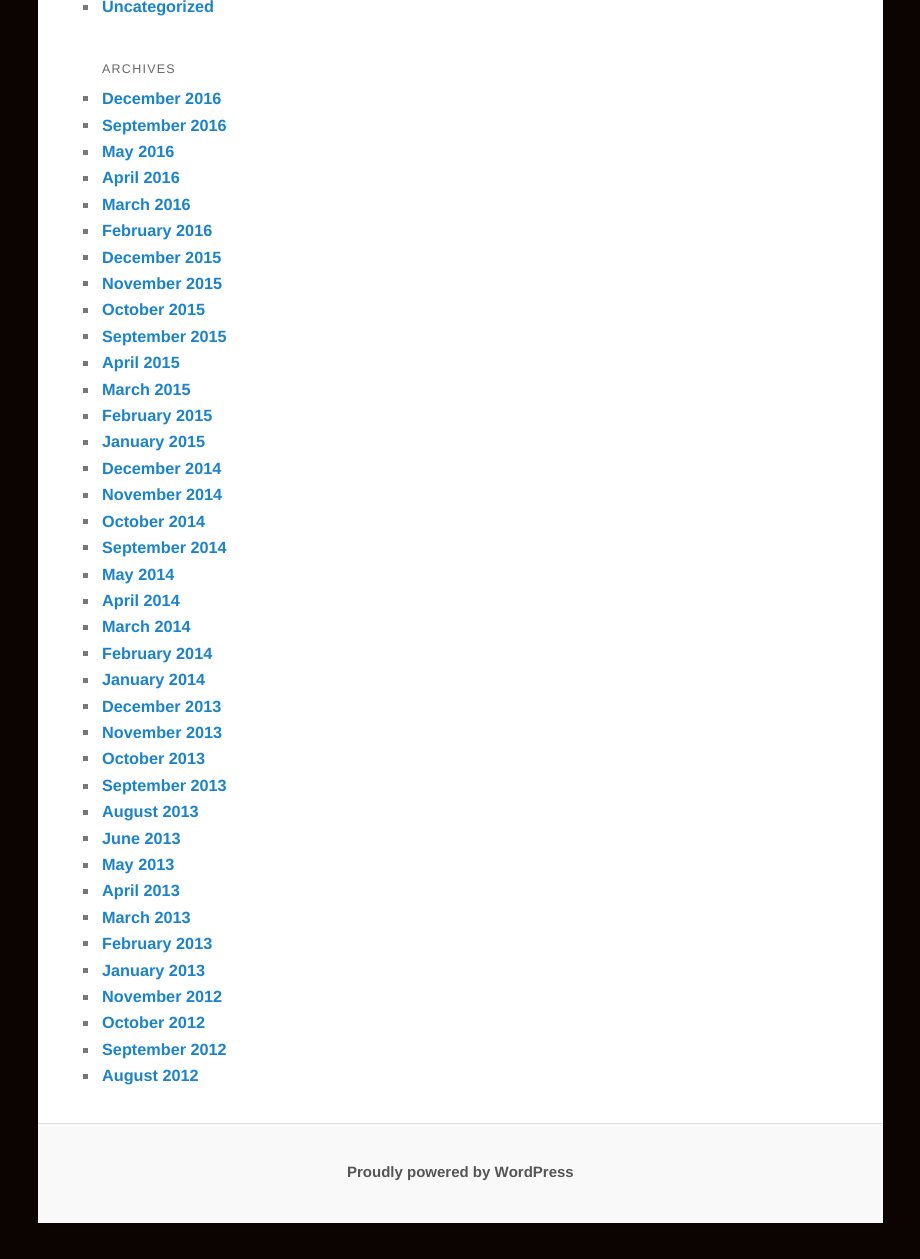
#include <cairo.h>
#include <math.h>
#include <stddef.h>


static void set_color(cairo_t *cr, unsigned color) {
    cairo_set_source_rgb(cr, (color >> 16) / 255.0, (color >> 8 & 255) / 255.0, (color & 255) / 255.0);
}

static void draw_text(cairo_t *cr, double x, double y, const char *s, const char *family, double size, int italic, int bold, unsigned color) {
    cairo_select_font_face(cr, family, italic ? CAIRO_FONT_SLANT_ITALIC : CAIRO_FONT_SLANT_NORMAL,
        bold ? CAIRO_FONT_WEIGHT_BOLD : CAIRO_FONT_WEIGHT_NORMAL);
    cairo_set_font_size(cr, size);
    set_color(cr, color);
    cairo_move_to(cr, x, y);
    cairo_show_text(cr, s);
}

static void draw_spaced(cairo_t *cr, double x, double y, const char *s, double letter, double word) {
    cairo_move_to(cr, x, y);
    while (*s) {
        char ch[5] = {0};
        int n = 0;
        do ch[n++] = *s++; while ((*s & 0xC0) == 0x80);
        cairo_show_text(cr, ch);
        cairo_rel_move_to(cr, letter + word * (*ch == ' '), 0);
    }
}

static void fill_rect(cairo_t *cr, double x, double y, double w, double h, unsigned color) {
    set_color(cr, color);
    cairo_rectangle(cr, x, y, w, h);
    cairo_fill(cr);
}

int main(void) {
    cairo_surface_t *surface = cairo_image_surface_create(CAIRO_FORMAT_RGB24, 920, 1259);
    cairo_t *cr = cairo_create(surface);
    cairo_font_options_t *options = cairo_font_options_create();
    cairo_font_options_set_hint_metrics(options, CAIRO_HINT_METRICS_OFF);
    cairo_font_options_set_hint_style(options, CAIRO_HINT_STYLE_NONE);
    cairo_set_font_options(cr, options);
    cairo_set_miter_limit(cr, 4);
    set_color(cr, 0x0C0401);
    cairo_paint(cr);
    fill_rect(cr, 38, 0, 845, 1123, 0xFFFFFF);
    fill_rect(cr, 83, 5, 5, 5, 0x777777);
    draw_text(cr, 102, 12, "Uncategorized", "Liberation Sans", 16.25, 0, 1, 0x1982D1);
    cairo_select_font_face(cr, "Liberation Sans", CAIRO_FONT_SLANT_NORMAL, CAIRO_FONT_WEIGHT_NORMAL);
    cairo_set_font_size(cr, 12.5);
    set_color(cr, 0x666666);
    draw_spaced(cr, 102, 73, "ARCHIVES", 1.25, 0);
    fill_rect(cr, 83, 96, 5, 5, 0x777777);
    draw_text(cr, 102, 104, "December 2016", "Liberation Sans", 16.25, 0, 1, 0x1982D1);
    fill_rect(cr, 83, 123, 5, 5, 0x777777);
    draw_text(cr, 102, 131, "September 2016", "Liberation Sans", 16.25, 0, 1, 0x1982D1);
    fill_rect(cr, 83, 150, 5, 5, 0x777777);
    draw_text(cr, 102, 157, "May 2016", "Liberation Sans", 16.25, 0, 1, 0x1982D1);
    fill_rect(cr, 83, 176, 5, 5, 0x777777);
    draw_text(cr, 102, 183, "April 2016", "Liberation Sans", 16.25, 0, 1, 0x1982D1);
    fill_rect(cr, 83, 203, 5, 5, 0x777777);
    draw_text(cr, 102, 210, "March 2016", "Liberation Sans", 16.25, 0, 1, 0x1982D1);
    fill_rect(cr, 83, 229, 5, 5, 0x777777);
    draw_text(cr, 102, 236, "February 2016", "Liberation Sans", 16.25, 0, 1, 0x1982D1);
    fill_rect(cr, 83, 255, 5, 5, 0x777777);
    draw_text(cr, 102, 263, "December 2015", "Liberation Sans", 16.25, 0, 1, 0x1982D1);
    fill_rect(cr, 83, 281, 5, 5, 0x777777);
    draw_text(cr, 102, 289, "November 2015", "Liberation Sans", 16.25, 0, 1, 0x1982D1);
    fill_rect(cr, 83, 308, 5, 5, 0x777777);
    draw_text(cr, 102, 315, "October 2015", "Liberation Sans", 16.25, 0, 1, 0x1982D1);
    fill_rect(cr, 83, 334, 5, 5, 0x777777);
    draw_text(cr, 102, 342, "September 2015", "Liberation Sans", 16.25, 0, 1, 0x1982D1);
    fill_rect(cr, 83, 361, 5, 5, 0x777777);
    draw_text(cr, 102, 368, "April 2015", "Liberation Sans", 16.25, 0, 1, 0x1982D1);
    fill_rect(cr, 83, 388, 5, 5, 0x777777);
    draw_text(cr, 102, 395, "March 2015", "Liberation Sans", 16.25, 0, 1, 0x1982D1);
    fill_rect(cr, 83, 414, 5, 5, 0x777777);
    draw_text(cr, 102, 421, "February 2015", "Liberation Sans", 16.25, 0, 1, 0x1982D1);
    fill_rect(cr, 83, 440, 5, 5, 0x777777);
    draw_text(cr, 102, 447, "January 2015", "Liberation Sans", 16.25, 0, 1, 0x1982D1);
    fill_rect(cr, 83, 466, 5, 5, 0x777777);
    draw_text(cr, 102, 474, "December 2014", "Liberation Sans", 16.25, 0, 1, 0x1982D1);
    fill_rect(cr, 83, 493, 5, 5, 0x777777);
    draw_text(cr, 102, 500, "November 2014", "Liberation Sans", 16.25, 0, 1, 0x1982D1);
    fill_rect(cr, 83, 519, 5, 5, 0x777777);
    draw_text(cr, 102, 527, "October 2014", "Liberation Sans", 16.25, 0, 1, 0x1982D1);
    fill_rect(cr, 83, 545, 5, 5, 0x777777);
    draw_text(cr, 102, 553, "September 2014", "Liberation Sans", 16.25, 0, 1, 0x1982D1);
    fill_rect(cr, 83, 573, 5, 5, 0x777777);
    draw_text(cr, 102, 580, "May 2014", "Liberation Sans", 16.25, 0, 1, 0x1982D1);
    fill_rect(cr, 83, 599, 5, 5, 0x777777);
    draw_text(cr, 102, 606, "April 2014", "Liberation Sans", 16.25, 0, 1, 0x1982D1);
    fill_rect(cr, 83, 625, 5, 5, 0x777777);
    draw_text(cr, 102, 632, "March 2014", "Liberation Sans", 16.25, 0, 1, 0x1982D1);
    fill_rect(cr, 83, 651, 5, 5, 0x777777);
    draw_text(cr, 102, 659, "February 2014", "Liberation Sans", 16.25, 0, 1, 0x1982D1);
    fill_rect(cr, 83, 678, 5, 5, 0x777777);
    draw_text(cr, 102, 685, "January 2014", "Liberation Sans", 16.25, 0, 1, 0x1982D1);
    fill_rect(cr, 83, 704, 5, 5, 0x777777);
    draw_text(cr, 102, 712, "December 2013", "Liberation Sans", 16.25, 0, 1, 0x1982D1);
    fill_rect(cr, 83, 730, 5, 5, 0x777777);
    draw_text(cr, 102, 738, "November 2013", "Liberation Sans", 16.25, 0, 1, 0x1982D1);
    fill_rect(cr, 83, 756, 5, 5, 0x777777);
    draw_text(cr, 102, 764, "October 2013", "Liberation Sans", 16.25, 0, 1, 0x1982D1);
    fill_rect(cr, 83, 784, 5, 5, 0x777777);
    draw_text(cr, 102, 791, "September 2013", "Liberation Sans", 16.25, 0, 1, 0x1982D1);
    fill_rect(cr, 83, 810, 5, 5, 0x777777);
    draw_text(cr, 102, 817, "August 2013", "Liberation Sans", 16.25, 0, 1, 0x1982D1);
    fill_rect(cr, 83, 836, 5, 5, 0x777777);
    draw_text(cr, 102, 844, "June 2013", "Liberation Sans", 16.25, 0, 1, 0x1982D1);
    fill_rect(cr, 83, 863, 5, 5, 0x777777);
    draw_text(cr, 102, 870, "May 2013", "Liberation Sans", 16.25, 0, 1, 0x1982D1);
    fill_rect(cr, 83, 889, 5, 5, 0x777777);
    draw_text(cr, 102, 896, "April 2013", "Liberation Sans", 16.25, 0, 1, 0x1982D1);
    fill_rect(cr, 83, 915, 5, 5, 0x777777);
    draw_text(cr, 102, 923, "March 2013", "Liberation Sans", 16.25, 0, 1, 0x1982D1);
    fill_rect(cr, 83, 941, 5, 5, 0x777777);
    draw_text(cr, 102, 949, "February 2013", "Liberation Sans", 16.25, 0, 1, 0x1982D1);
    fill_rect(cr, 83, 968, 5, 5, 0x777777);
    draw_text(cr, 102, 976, "January 2013", "Liberation Sans", 16.25, 0, 1, 0x1982D1);
    fill_rect(cr, 83, 995, 5, 5, 0x777777);
    draw_text(cr, 102, 1002, "November 2012", "Liberation Sans", 16.25, 0, 1, 0x1982D1);
    fill_rect(cr, 83, 1021, 5, 5, 0x777777);
    draw_text(cr, 102, 1028, "October 2012", "Liberation Sans", 16.25, 0, 1, 0x1982D1);
    fill_rect(cr, 83, 1048, 5, 5, 0x777777);
    draw_text(cr, 102, 1055, "September 2012", "Liberation Sans", 16.25, 0, 1, 0x1982D1);
    fill_rect(cr, 83, 1074, 5, 5, 0x777777);
    draw_text(cr, 102, 1081, "August 2012", "Liberation Sans", 16.25, 0, 1, 0x1982D1);
    fill_rect(cr, 38, 1124, 845, 99, 0xF9F9F9);
    fill_rect(cr, 38, 1123, 845, 1, 0xDDDDDD);
    draw_text(cr, 347, 1177, "Proudly powered by WordPress", "Liberation Sans", 15, 0, 1, 0x555555);
    cairo_surface_write_to_png(surface, "output.png");
    cairo_font_options_destroy(options);
    cairo_destroy(cr);
    cairo_surface_destroy(surface);
    return 0;
}
